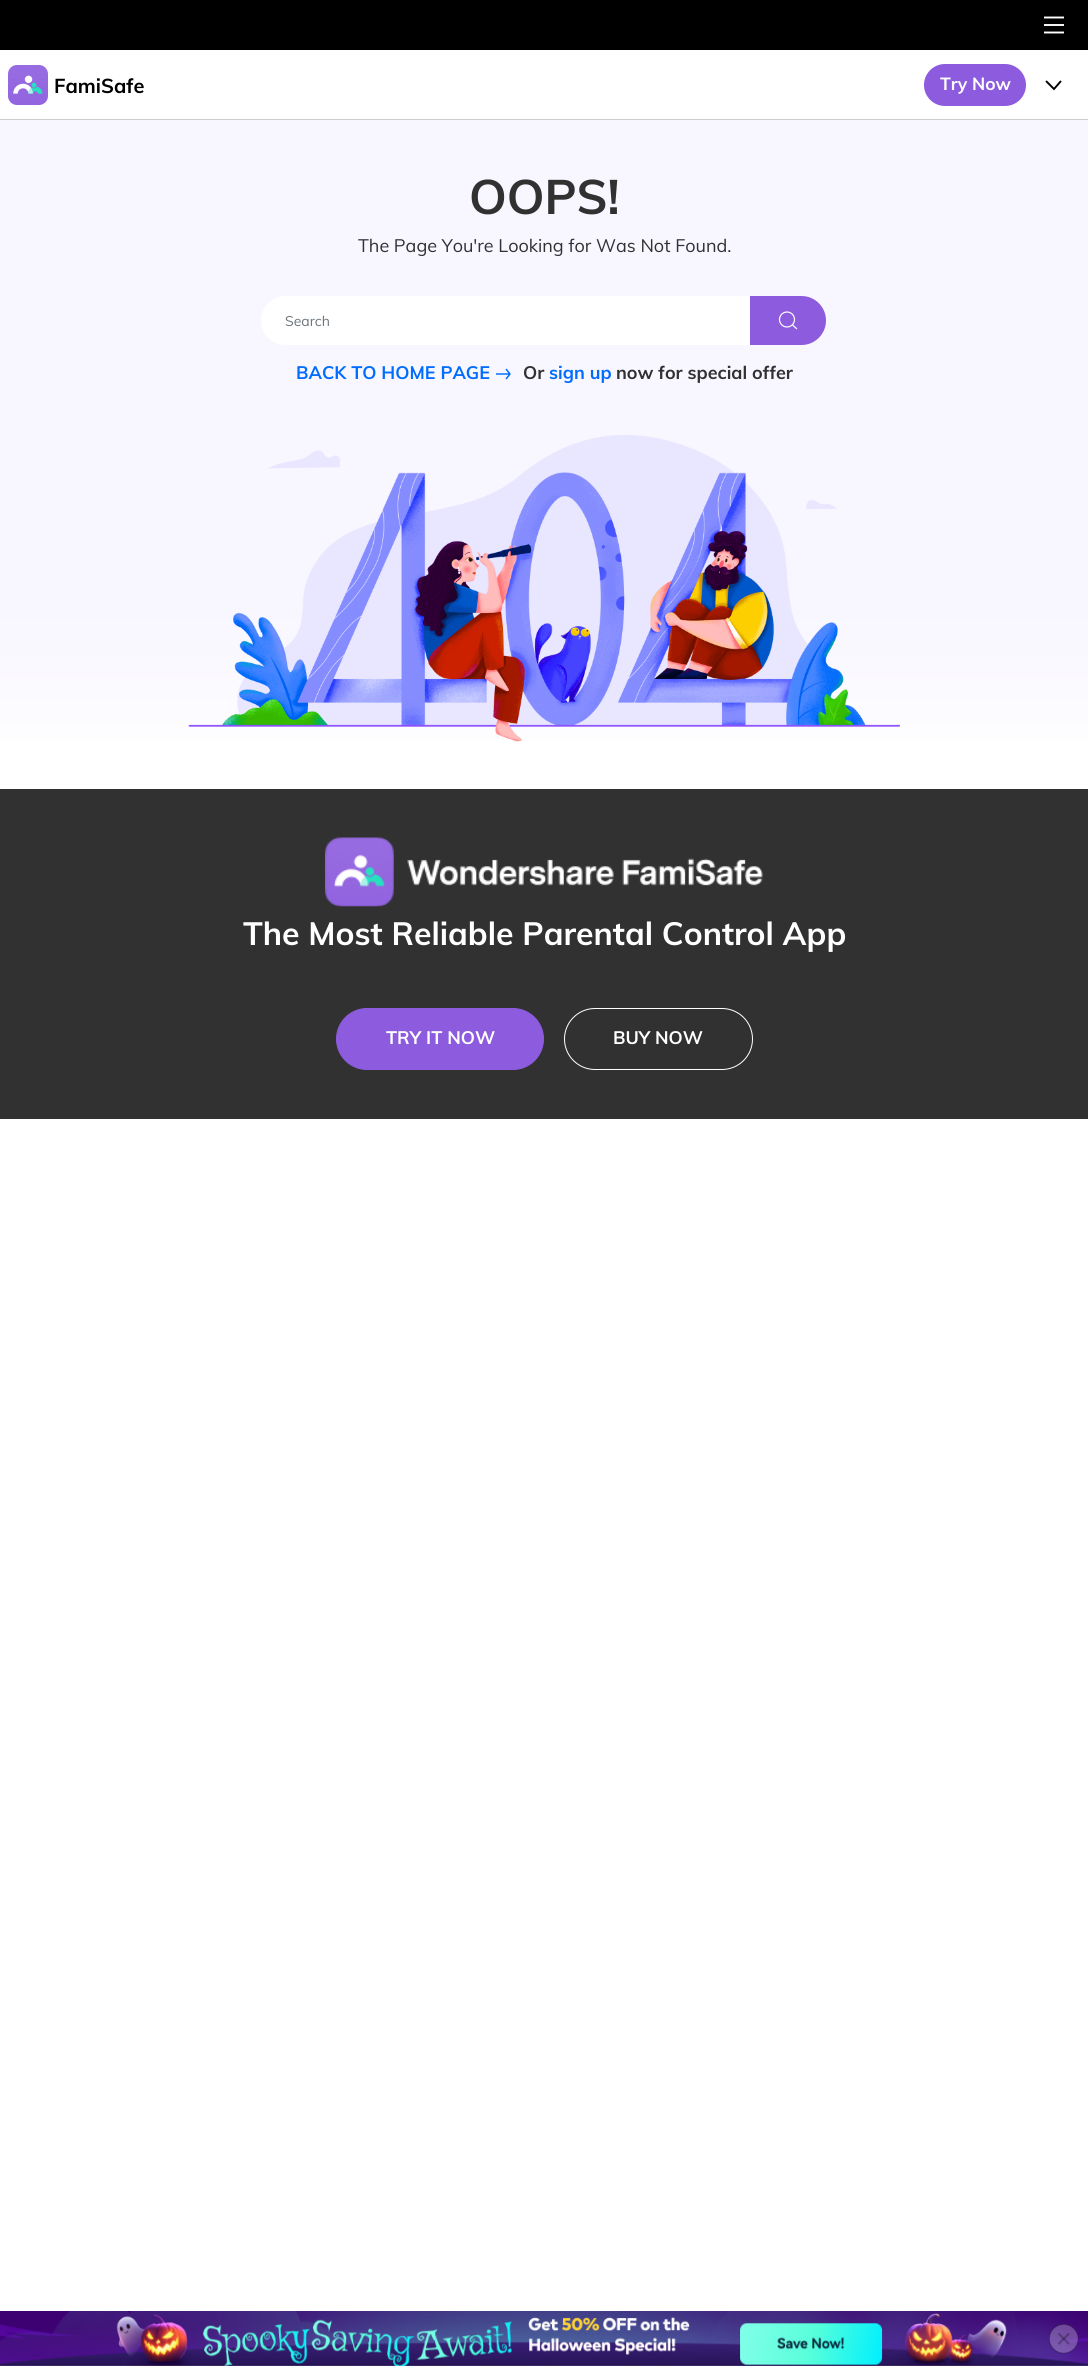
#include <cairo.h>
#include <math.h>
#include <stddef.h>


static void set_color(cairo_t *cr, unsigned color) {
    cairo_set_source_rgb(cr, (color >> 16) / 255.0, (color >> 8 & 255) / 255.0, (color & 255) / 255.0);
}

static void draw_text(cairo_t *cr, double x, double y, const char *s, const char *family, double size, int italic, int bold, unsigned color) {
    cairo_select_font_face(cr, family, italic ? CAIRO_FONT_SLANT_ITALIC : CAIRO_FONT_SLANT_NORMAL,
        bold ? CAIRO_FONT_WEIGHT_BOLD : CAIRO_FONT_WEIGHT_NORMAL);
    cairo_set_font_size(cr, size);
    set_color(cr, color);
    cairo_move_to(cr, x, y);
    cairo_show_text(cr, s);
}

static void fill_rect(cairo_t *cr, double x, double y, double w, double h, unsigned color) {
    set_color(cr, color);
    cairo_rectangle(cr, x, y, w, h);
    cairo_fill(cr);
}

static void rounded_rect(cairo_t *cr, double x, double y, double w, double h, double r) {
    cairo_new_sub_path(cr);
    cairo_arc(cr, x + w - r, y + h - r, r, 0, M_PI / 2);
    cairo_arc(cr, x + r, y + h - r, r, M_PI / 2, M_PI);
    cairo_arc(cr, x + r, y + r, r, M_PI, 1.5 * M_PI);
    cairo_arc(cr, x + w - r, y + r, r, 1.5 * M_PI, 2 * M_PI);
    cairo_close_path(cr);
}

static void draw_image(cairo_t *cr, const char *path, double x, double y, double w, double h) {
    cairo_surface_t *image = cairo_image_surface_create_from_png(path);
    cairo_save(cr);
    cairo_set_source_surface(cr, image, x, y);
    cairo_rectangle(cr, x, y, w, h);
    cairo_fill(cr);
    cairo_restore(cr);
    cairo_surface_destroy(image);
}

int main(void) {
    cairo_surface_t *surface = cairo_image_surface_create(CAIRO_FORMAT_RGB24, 1088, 2366);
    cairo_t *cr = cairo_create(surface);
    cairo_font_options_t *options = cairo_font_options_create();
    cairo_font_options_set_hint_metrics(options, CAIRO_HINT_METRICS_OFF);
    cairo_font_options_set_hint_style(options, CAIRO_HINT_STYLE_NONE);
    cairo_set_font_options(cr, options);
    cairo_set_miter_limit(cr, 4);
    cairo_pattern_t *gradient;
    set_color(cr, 0xFFFFFF);
    cairo_paint(cr);
    fill_rect(cr, 0, 0, 1088, 50, 0x000000);
    cairo_new_path(cr);
    cairo_move_to(cr, 1044, 17.5);
    cairo_line_to(cr, 1064, 17.5);
    cairo_move_to(cr, 1064, 25);
    cairo_line_to(cr, 1044, 25);
    cairo_move_to(cr, 1064, 32.5);
    cairo_line_to(cr, 1044, 32.5);
    set_color(cr, 0xFFFFFF);
    cairo_set_line_width(cr, 1.9);
    cairo_stroke(cr);
    fill_rect(cr, 0, 119, 1088, 1, 0xCCCCCC);
    draw_image(cr, "assets/img1.png", 8, 65, 40, 40);
    draw_text(cr, 54, 93, "FamiSafe", "Muli", 20, 0, 1, 0x000000);
    set_color(cr, 0x8C5BDE);
    rounded_rect(cr, 924, 64, 102, 42, 21);
    cairo_fill(cr);
    draw_text(cr, 940, 90, "Try Now", "Muli", 17.5, 0, 1, 0xFFFFFF);
    cairo_new_path(cr);
    cairo_move_to(cr, 1046, 81);
    cairo_line_to(cr, 1054, 89);
    cairo_line_to(cr, 1061, 81);
    set_color(cr, 0x000000);
    cairo_stroke(cr);
    gradient = cairo_pattern_create_linear(544, 120, 544, 789);
    cairo_pattern_add_color_stop_rgba(gradient, 0.73, 0.973, 0.965, 1, 1);
    cairo_pattern_add_color_stop_rgba(gradient, 1, 1, 1, 1, 1);
    cairo_set_source(cr, gradient);
    cairo_pattern_destroy(gradient);
    cairo_rectangle(cr, 0, 120, 1088, 619);
    cairo_fill(cr);
    draw_text(cr, 469, 214, "OOPS!", "Muli", 48, 0, 1, 0x313131);
    draw_text(cr, 358, 252, "The Page You're Looking for Was Not Found.", "Muli", 18, 0, 0, 0x313131);
    set_color(cr, 0xFFFFFF);
    cairo_new_path(cr);
    cairo_move_to(cr, 285.5, 296);
    cairo_line_to(cr, 750, 296);
    cairo_line_to(cr, 750, 345);
    cairo_line_to(cr, 285.5, 345);
    cairo_curve_to(cr, 272, 345, 261, 334, 261, 320.5);
    cairo_curve_to(cr, 261, 307, 272, 296, 285.5, 296);
    cairo_close_path(cr);
    cairo_fill(cr);
    draw_text(cr, 285, 326, "Search", "Muli", 14, 0, 0, 0x6C757D);
    set_color(cr, 0x8C5BDE);
    cairo_new_path(cr);
    cairo_move_to(cr, 750, 296);
    cairo_line_to(cr, 801.5, 296);
    cairo_curve_to(cr, 815, 296, 826, 307, 826, 320.5);
    cairo_curve_to(cr, 826, 334, 815, 345, 801.5, 345);
    cairo_line_to(cr, 750, 345);
    cairo_close_path(cr);
    cairo_fill(cr);
    cairo_arc(cr, 787, 319.5, 7.5, 0, 2 * M_PI);
    set_color(cr, 0xFFFFFF);
    cairo_set_line_width(cr, 1.2);
    cairo_stroke(cr);
    cairo_new_path(cr);
    cairo_move_to(cr, 792.5, 325);
    cairo_line_to(cr, 797, 329);
    cairo_set_line_join(cr, CAIRO_LINE_JOIN_BEVEL);
    cairo_stroke(cr);
    draw_text(cr, 296, 379, "BACK TO HOME PAGE", "Muli", 18, 0, 1, 0x006DFF);
    cairo_new_path(cr);
    cairo_move_to(cr, 506, 369);
    cairo_line_to(cr, 510, 374);
    cairo_line_to(cr, 506, 379);
    cairo_move_to(cr, 510, 374);
    cairo_line_to(cr, 496, 374);
    cairo_set_line_width(cr, 1.5);
    cairo_stroke(cr);
    draw_text(cr, 523, 379, "Or", "Muli", 18, 0, 1, 0x313131);
    draw_text(cr, 549, 379, "sign up", "Muli", 18, 0, 1, 0x006DFF);
    draw_text(cr, 616, 379, "now for special offer", "Muli", 18, 0, 1, 0x313131);
    draw_image(cr, "assets/img2.png", 188, 435, 712, 307);
    fill_rect(cr, 0, 789, 1088, 330, 0x313131);
    draw_image(cr, "assets/img3.png", 325, 837, 438, 70);
    draw_text(cr, 243, 945, "The Most Reliable Parental Control App", "Muli", 32, 0, 1, 0xFFFFFF);
    set_color(cr, 0x8C5BDE);
    rounded_rect(cr, 336.5, 1008.5, 207, 61, 30.5);
    cairo_fill_preserve(cr);
    cairo_set_line_width(cr, 1);
    cairo_set_line_join(cr, CAIRO_LINE_JOIN_MITER);
    cairo_stroke(cr);
    draw_text(cr, 386, 1044, "TRY IT NOW", "Muli", 18, 0, 1, 0xFFFFFF);
    rounded_rect(cr, 564.5, 1008.5, 188, 61, 30.5);
    cairo_stroke(cr);
    draw_text(cr, 613, 1044, "BUY NOW", "Muli", 18, 0, 1, 0xFFFFFF);
    draw_image(cr, "assets/img4.png", 0, 2311, 1088, 55);
    draw_image(cr, "assets/img5.png", 1049, 2324, 30, 30);
    cairo_surface_write_to_png(surface, "output.png");
    cairo_font_options_destroy(options);
    cairo_destroy(cr);
    cairo_surface_destroy(surface);
    return 0;
}
